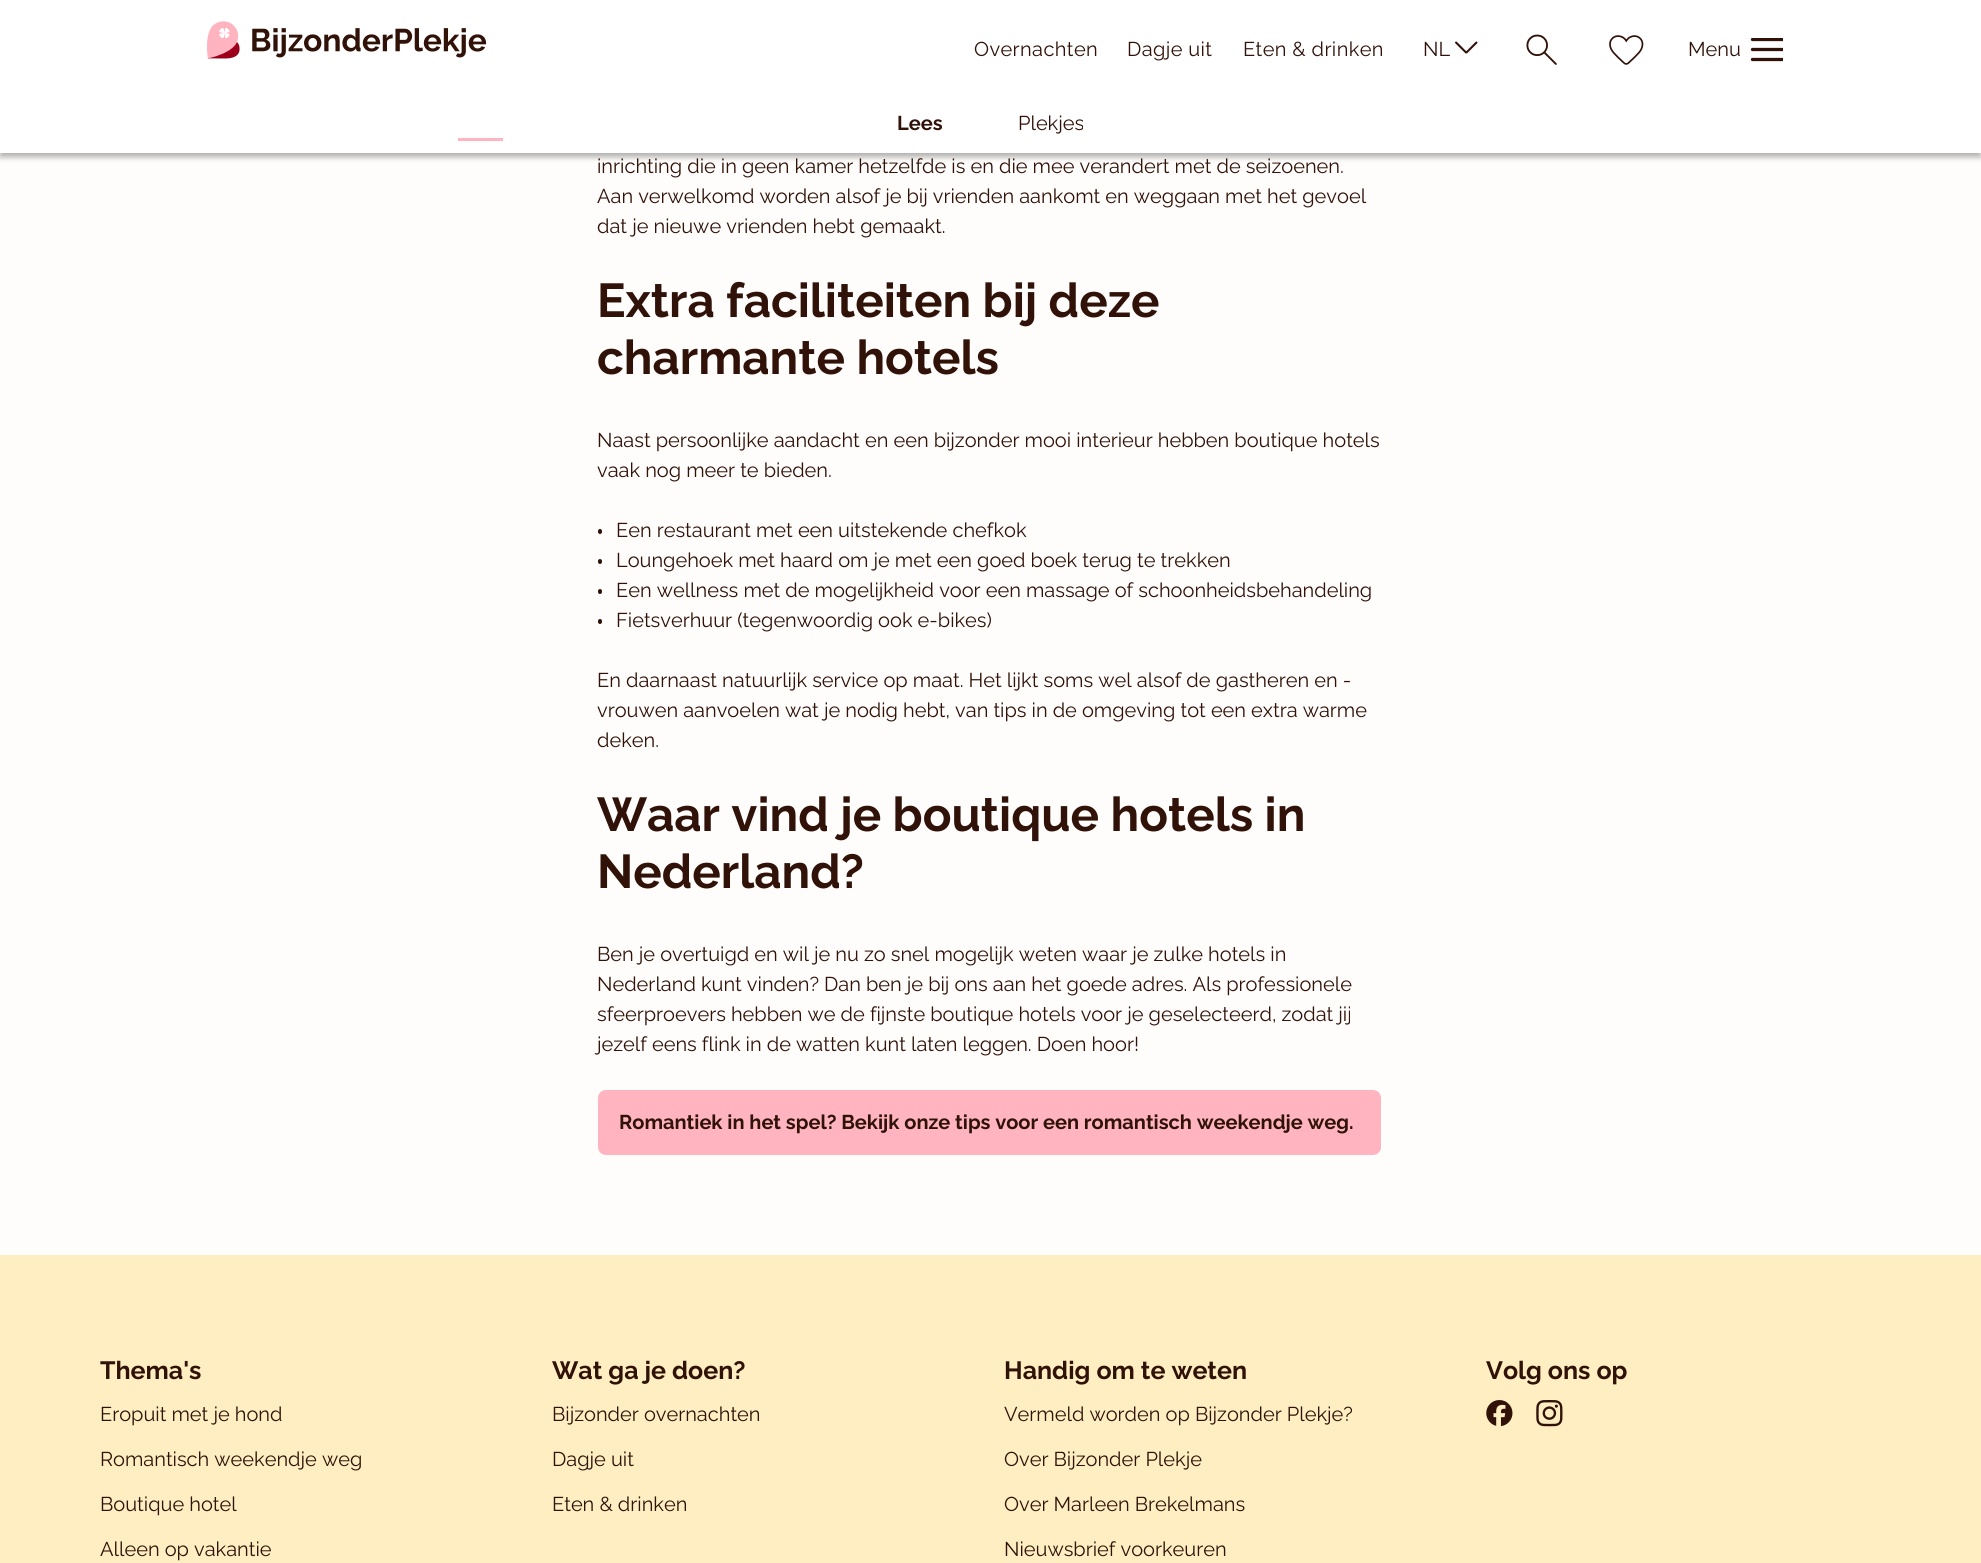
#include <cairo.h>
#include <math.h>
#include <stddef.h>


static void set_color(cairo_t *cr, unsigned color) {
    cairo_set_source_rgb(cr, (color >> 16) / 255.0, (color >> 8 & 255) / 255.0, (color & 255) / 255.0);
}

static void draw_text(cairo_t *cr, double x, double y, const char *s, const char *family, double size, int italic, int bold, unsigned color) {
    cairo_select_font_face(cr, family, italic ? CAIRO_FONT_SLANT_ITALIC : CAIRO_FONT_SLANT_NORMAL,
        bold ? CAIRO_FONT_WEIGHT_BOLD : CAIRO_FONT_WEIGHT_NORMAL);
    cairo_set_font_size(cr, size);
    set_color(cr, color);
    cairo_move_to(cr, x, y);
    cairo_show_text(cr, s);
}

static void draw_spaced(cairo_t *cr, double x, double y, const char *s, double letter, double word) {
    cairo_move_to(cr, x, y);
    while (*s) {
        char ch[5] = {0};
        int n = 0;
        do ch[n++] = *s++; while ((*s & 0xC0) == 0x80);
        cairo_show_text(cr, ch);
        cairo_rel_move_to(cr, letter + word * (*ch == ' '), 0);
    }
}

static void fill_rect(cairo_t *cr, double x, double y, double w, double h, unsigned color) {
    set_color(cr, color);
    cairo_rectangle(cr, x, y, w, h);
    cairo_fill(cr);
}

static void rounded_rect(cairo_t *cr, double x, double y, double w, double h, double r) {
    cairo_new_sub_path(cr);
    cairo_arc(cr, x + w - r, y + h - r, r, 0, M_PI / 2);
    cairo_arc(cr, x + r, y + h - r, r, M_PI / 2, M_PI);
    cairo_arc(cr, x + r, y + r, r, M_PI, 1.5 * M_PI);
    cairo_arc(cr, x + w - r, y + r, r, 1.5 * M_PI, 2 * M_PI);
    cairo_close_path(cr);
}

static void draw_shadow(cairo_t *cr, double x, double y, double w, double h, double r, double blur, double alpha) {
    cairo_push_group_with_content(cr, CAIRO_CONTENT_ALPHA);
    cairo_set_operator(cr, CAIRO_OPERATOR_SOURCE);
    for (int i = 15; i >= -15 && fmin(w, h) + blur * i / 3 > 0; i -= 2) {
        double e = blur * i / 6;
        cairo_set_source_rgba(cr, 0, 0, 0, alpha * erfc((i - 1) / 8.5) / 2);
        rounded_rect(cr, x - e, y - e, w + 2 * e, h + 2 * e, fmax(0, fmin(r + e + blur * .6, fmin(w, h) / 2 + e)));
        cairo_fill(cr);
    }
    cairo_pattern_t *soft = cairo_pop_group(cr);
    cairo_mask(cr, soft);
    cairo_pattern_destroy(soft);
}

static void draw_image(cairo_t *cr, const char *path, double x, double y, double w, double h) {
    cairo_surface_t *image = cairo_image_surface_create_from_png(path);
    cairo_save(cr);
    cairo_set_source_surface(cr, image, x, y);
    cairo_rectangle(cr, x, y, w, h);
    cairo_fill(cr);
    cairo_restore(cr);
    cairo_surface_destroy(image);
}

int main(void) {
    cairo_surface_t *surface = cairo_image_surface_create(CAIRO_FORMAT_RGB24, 1981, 1563);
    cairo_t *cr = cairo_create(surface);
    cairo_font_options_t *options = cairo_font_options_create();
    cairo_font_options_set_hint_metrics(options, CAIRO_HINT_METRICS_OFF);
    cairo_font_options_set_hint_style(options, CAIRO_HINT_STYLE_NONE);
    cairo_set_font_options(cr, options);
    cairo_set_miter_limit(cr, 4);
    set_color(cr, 0xFFFDFB);
    cairo_paint(cr);
    set_color(cr, 0x000000);
    draw_shadow(cr, 0, 5, 1981, 153, 0, 2.5, 0.24);
    draw_shadow(cr, 0, 0, 1981, 153, 0, 2.5, 0.12);
    fill_rect(cr, 0, 0, 1981, 153, 0xFFFFFF);
    draw_image(cr, "assets/img1.png", 207, 21, 280, 38);
    cairo_select_font_face(cr, "Raleway", CAIRO_FONT_SLANT_NORMAL, CAIRO_FONT_WEIGHT_NORMAL);
    cairo_set_font_size(cr, 20);
    set_color(cr, 0x301209);
    draw_spaced(cr, 974, 56, "Overnachten", 0.4, 0);
    draw_spaced(cr, 1127, 56, "Dagje uit", 0.4, 0);
    draw_spaced(cr, 1243, 56, "Eten & drinken", 0.4, 0);
    draw_text(cr, 1423, 56, "NL", "Raleway", 20, 0, 0, 0x301209);
    draw_image(cr, "assets/img2.png", 1455, 41, 23, 13);
    draw_image(cr, "assets/img3.png", 1526, 34, 31, 31);
    draw_image(cr, "assets/img4.png", 1609, 35, 35, 30);
    draw_text(cr, 1688, 56, "Menu", "Raleway", 20, 0, 0, 0x301209);
    cairo_save(cr);
    cairo_rectangle(cr, 1750, 38, 33, 26);
    cairo_clip(cr);
    cairo_new_path(cr);
    cairo_move_to(cr, 1752.5, 39.5);
    cairo_line_to(cr, 1782.5, 39.5);
    cairo_move_to(cr, 1752.5, 49.5);
    cairo_line_to(cr, 1782.5, 49.5);
    cairo_move_to(cr, 1752.5, 59.5);
    cairo_line_to(cr, 1782.5, 59.5);
    cairo_set_line_width(cr, 3.3);
    cairo_set_line_cap(cr, CAIRO_LINE_CAP_ROUND);
    cairo_set_line_join(cr, CAIRO_LINE_JOIN_ROUND);
    cairo_stroke(cr);
    cairo_restore(cr);
    draw_text(cr, 897, 130, "Lees", "Raleway", 20, 0, 1, 0x301209);
    draw_text(cr, 1018, 130, "Plekjes", "Raleway", 20, 0, 0, 0x301209);
    fill_rect(cr, 458, 138, 45, 3, 0xFFB4C0);
    draw_text(cr, 597, 173, "inrichting die in geen kamer hetzelfde is en die mee verandert met de seizoenen.", "Raleway", 20, 0, 0, 0x301209);
    draw_text(cr, 597, 203, "Aan verwelkomd worden alsof je bij vrienden aankomt en weggaan met het gevoel", "Raleway", 20, 0, 0, 0x301209);
    draw_text(cr, 597, 233, "dat je nieuwe vrienden hebt gemaakt.", "Raleway", 20, 0, 0, 0x301209);
    draw_text(cr, 597, 317, "Extra faciliteiten bij deze", "Raleway", 47.5, 0, 1, 0x301209);
    draw_text(cr, 597, 374, "charmante hotels", "Raleway", 47.5, 0, 1, 0x301209);
    draw_text(cr, 597, 447, "Naast persoonlijke aandacht en een bijzonder mooi interieur hebben boutique hotels", "Raleway", 20, 0, 0, 0x301209);
    draw_text(cr, 597, 477, "vaak nog meer te bieden.", "Raleway", 20, 0, 0, 0x301209);
    rounded_rect(cr, 598, 529, 4, 5, 2);
    cairo_fill(cr);
    draw_text(cr, 616, 537, "Een restaurant met een uitstekende chefkok", "Raleway", 20, 0, 0, 0x301209);
    rounded_rect(cr, 598, 559, 4, 5, 2);
    cairo_fill(cr);
    draw_text(cr, 616, 567, "Loungehoek met haard om je met een goed boek terug te trekken", "Raleway", 20, 0, 0, 0x301209);
    rounded_rect(cr, 598, 589, 4, 5, 2);
    cairo_fill(cr);
    draw_text(cr, 616, 597, "Een wellness met de mogelijkheid voor een massage of schoonheidsbehandeling", "Raleway", 20, 0, 0, 0x301209);
    rounded_rect(cr, 598, 619, 4, 5, 2);
    cairo_fill(cr);
    draw_text(cr, 616, 627, "Fietsverhuur (tegenwoordig ook e-bikes)", "Raleway", 20, 0, 0, 0x301209);
    draw_text(cr, 597, 687, "En daarnaast natuurlijk service op maat. Het lijkt soms wel alsof de gastheren en -", "Raleway", 20, 0, 0, 0x301209);
    draw_text(cr, 597, 717, "vrouwen aanvoelen wat je nodig hebt, van tips in de omgeving tot een extra warme", "Raleway", 20, 0, 0, 0x301209);
    draw_text(cr, 597, 747, "deken.", "Raleway", 20, 0, 0, 0x301209);
    draw_text(cr, 597, 831, "Waar vind je boutique hotels in", "Raleway", 47.5, 0, 1, 0x301209);
    draw_text(cr, 597, 888, "Nederland?", "Raleway", 47.5, 0, 1, 0x301209);
    draw_text(cr, 597, 961, "Ben je overtuigd en wil je nu zo snel mogelijk weten waar je zulke hotels in", "Raleway", 20, 0, 0, 0x301209);
    draw_text(cr, 597, 991, "Nederland kunt vinden? Dan ben je bij ons aan het goede adres. Als professionele", "Raleway", 20, 0, 0, 0x301209);
    draw_text(cr, 597, 1021, "sfeerproevers hebben we de fijnste boutique hotels voor je geselecteerd, zodat jij", "Raleway", 20, 0, 0, 0x301209);
    draw_text(cr, 597, 1051, "jezelf eens flink in de watten kunt laten leggen. Doen hoor!", "Raleway", 20, 0, 0, 0x301209);
    set_color(cr, 0xFFB4C0);
    rounded_rect(cr, 598, 1090, 783, 65, 8);
    cairo_fill(cr);
    draw_text(cr, 619, 1129, "Romantiek in het spel? Bekijk onze tips voor een romantisch weekendje weg.", "Raleway", 20, 0, 1, 0x301209);
    fill_rect(cr, 0, 1255, 1981, 308, 0xFFEEC1);
    draw_text(cr, 100, 1379, "Thema's", "Raleway", 25, 0, 1, 0x301209);
    draw_text(cr, 100, 1421, "Eropuit met je hond", "Raleway", 20, 0, 0, 0x301209);
    draw_text(cr, 100, 1466, "Romantisch weekendje weg", "Raleway", 20, 0, 0, 0x301209);
    draw_text(cr, 100, 1511, "Boutique hotel", "Raleway", 20, 0, 0, 0x301209);
    draw_text(cr, 100, 1556, "Alleen op vakantie", "Raleway", 20, 0, 0, 0x301209);
    draw_text(cr, 552, 1379, "Wat ga je doen?", "Raleway", 25, 0, 1, 0x301209);
    draw_text(cr, 552, 1421, "Bijzonder overnachten", "Raleway", 20, 0, 0, 0x301209);
    draw_text(cr, 552, 1466, "Dagje uit", "Raleway", 20, 0, 0, 0x301209);
    draw_text(cr, 552, 1511, "Eten & drinken", "Raleway", 20, 0, 0, 0x301209);
    draw_text(cr, 1004, 1379, "Handig om te weten", "Raleway", 25, 0, 1, 0x301209);
    draw_text(cr, 1004, 1421, "Vermeld worden op Bijzonder Plekje?", "Raleway", 20, 0, 0, 0x301209);
    draw_text(cr, 1004, 1466, "Over Bijzonder Plekje", "Raleway", 20, 0, 0, 0x301209);
    draw_text(cr, 1004, 1511, "Over Marleen Brekelmans", "Raleway", 20, 0, 0, 0x301209);
    draw_text(cr, 1004, 1556, "Nieuwsbrief voorkeuren", "Raleway", 20, 0, 0, 0x301209);
    draw_text(cr, 1486, 1379, "Volg ons op", "Raleway", 25, 0, 1, 0x301209);
    draw_image(cr, "assets/img5.png", 1486, 1400, 27, 27);
    draw_image(cr, "assets/img6.png", 1536, 1400, 27, 27);
    cairo_surface_write_to_png(surface, "output.png");
    cairo_font_options_destroy(options);
    cairo_destroy(cr);
    cairo_surface_destroy(surface);
    return 0;
}
